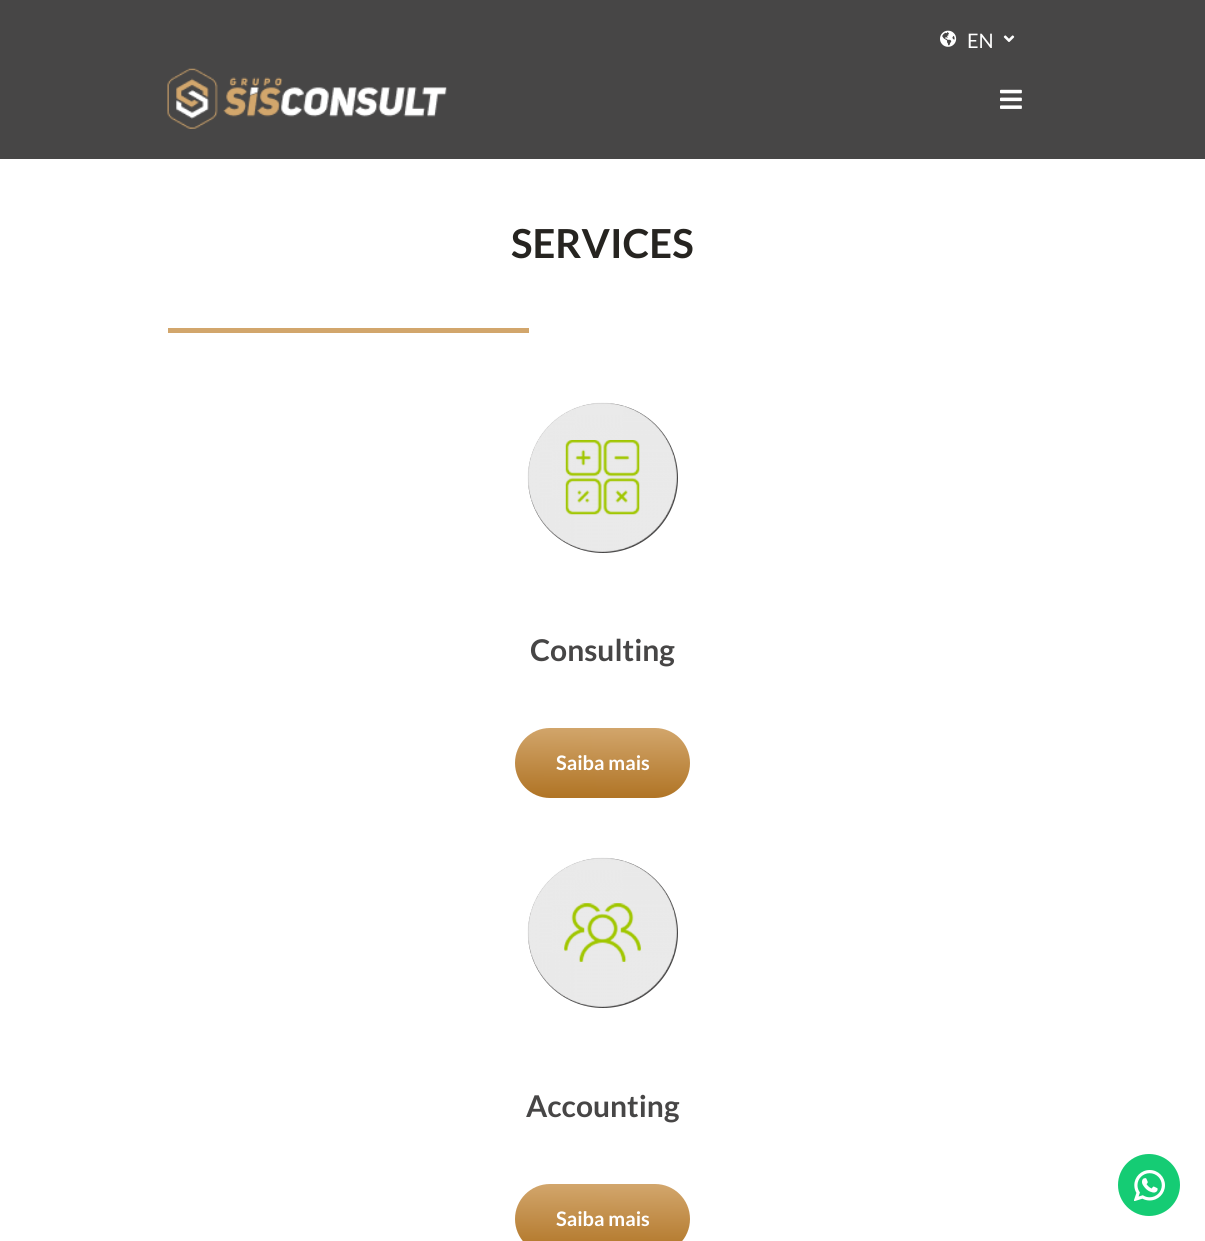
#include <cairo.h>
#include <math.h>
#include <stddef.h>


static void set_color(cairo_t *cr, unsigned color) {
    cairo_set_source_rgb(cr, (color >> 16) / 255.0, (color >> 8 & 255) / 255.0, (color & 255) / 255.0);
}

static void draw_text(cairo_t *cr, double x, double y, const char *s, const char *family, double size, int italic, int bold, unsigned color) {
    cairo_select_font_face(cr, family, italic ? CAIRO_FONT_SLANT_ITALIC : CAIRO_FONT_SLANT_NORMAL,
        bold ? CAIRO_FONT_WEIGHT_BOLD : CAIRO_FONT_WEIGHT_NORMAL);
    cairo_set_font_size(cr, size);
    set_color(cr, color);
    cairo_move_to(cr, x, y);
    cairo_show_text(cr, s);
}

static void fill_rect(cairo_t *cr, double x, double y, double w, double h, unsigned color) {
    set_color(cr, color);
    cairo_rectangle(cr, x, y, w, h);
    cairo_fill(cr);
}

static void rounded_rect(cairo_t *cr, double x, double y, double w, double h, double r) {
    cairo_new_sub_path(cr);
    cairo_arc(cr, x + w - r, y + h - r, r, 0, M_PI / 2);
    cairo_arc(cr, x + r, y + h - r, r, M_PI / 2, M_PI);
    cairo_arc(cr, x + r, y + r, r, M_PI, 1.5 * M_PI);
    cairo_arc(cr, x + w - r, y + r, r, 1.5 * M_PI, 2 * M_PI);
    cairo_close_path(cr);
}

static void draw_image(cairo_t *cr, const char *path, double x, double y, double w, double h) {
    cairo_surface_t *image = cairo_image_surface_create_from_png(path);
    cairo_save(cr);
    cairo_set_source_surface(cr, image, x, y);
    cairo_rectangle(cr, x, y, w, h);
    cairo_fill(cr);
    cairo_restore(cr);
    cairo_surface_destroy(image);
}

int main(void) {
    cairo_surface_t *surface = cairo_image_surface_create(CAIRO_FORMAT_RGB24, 1205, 1241);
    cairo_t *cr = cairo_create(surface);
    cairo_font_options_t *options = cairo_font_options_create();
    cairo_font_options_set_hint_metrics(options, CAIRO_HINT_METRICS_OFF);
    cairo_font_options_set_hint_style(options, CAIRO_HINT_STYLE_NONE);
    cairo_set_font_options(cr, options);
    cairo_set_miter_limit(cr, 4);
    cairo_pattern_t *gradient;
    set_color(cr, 0xFFFFFF);
    cairo_paint(cr);
    fill_rect(cr, 0, 0, 1205, 159, 0x474646);
    draw_image(cr, "assets/img1.png", 940, 30, 17, 17);
    draw_text(cr, 967, 48, "EN", "Lato", 20, 0, 0, 0xFFFFFF);
    draw_image(cr, "assets/img2.png", 1003, 35, 12, 7);
    draw_image(cr, "assets/img3.png", 167, 68, 280, 61);
    draw_image(cr, "assets/img4.png", 1000, 89, 22, 20);
    draw_text(cr, 511, 258, "SERVICES", "Lato", 40, 0, 1, 0x262420);
    fill_rect(cr, 168, 328, 361, 5, 0xD2A66C);
    set_color(cr, 0x474646);
    cairo_new_path(cr);
    cairo_arc(cr, 603, 478, 75, 0, 2 * M_PI);
    cairo_fill(cr);
    draw_image(cr, "assets/img5.png", 527, 402, 150, 150);
    draw_text(cr, 530, 661, "Consulting", "Lato", 30, 0, 1, 0x474646);
    gradient = cairo_pattern_create_linear(603, 727, 602, 835);
    cairo_pattern_add_color_stop_rgba(gradient, 0, 0.824, 0.651, 0.424, 1);
    cairo_pattern_add_color_stop_rgba(gradient, 1, 0.62, 0.353, 0, 1);
    cairo_set_source(cr, gradient);
    cairo_pattern_destroy(gradient);
    rounded_rect(cr, 515, 728, 175, 70, 35);
    cairo_fill(cr);
    draw_text(cr, 556, 770, "Saiba mais", "Lato", 20, 0, 1, 0xFFFFFF);
    set_color(cr, 0x474646);
    cairo_new_path(cr);
    cairo_arc(cr, 603, 933, 75, 0, 2 * M_PI);
    cairo_fill(cr);
    draw_image(cr, "assets/img6.png", 527, 857, 150, 150);
    draw_text(cr, 526, 1117, "Accounting", "Lato", 30, 0, 1, 0x474646);
    gradient = cairo_pattern_create_linear(603, 1184, 602, 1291);
    cairo_pattern_add_color_stop_rgba(gradient, 0, 0.824, 0.651, 0.424, 1);
    cairo_pattern_add_color_stop_rgba(gradient, 1, 0.62, 0.353, 0, 1);
    cairo_set_source(cr, gradient);
    cairo_pattern_destroy(gradient);
    rounded_rect(cr, 515, 1184, 175, 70, 35);
    cairo_fill(cr);
    draw_text(cr, 556, 1226, "Saiba mais", "Lato", 20, 0, 1, 0xFFFFFF);
    set_color(cr, 0x15CC74);
    cairo_new_path(cr);
    cairo_arc(cr, 1149, 1185, 31, 0, 2 * M_PI);
    cairo_fill(cr);
    draw_image(cr, "assets/img7.png", 1134, 1170, 31, 31);
    cairo_surface_write_to_png(surface, "output.png");
    cairo_font_options_destroy(options);
    cairo_destroy(cr);
    cairo_surface_destroy(surface);
    return 0;
}
